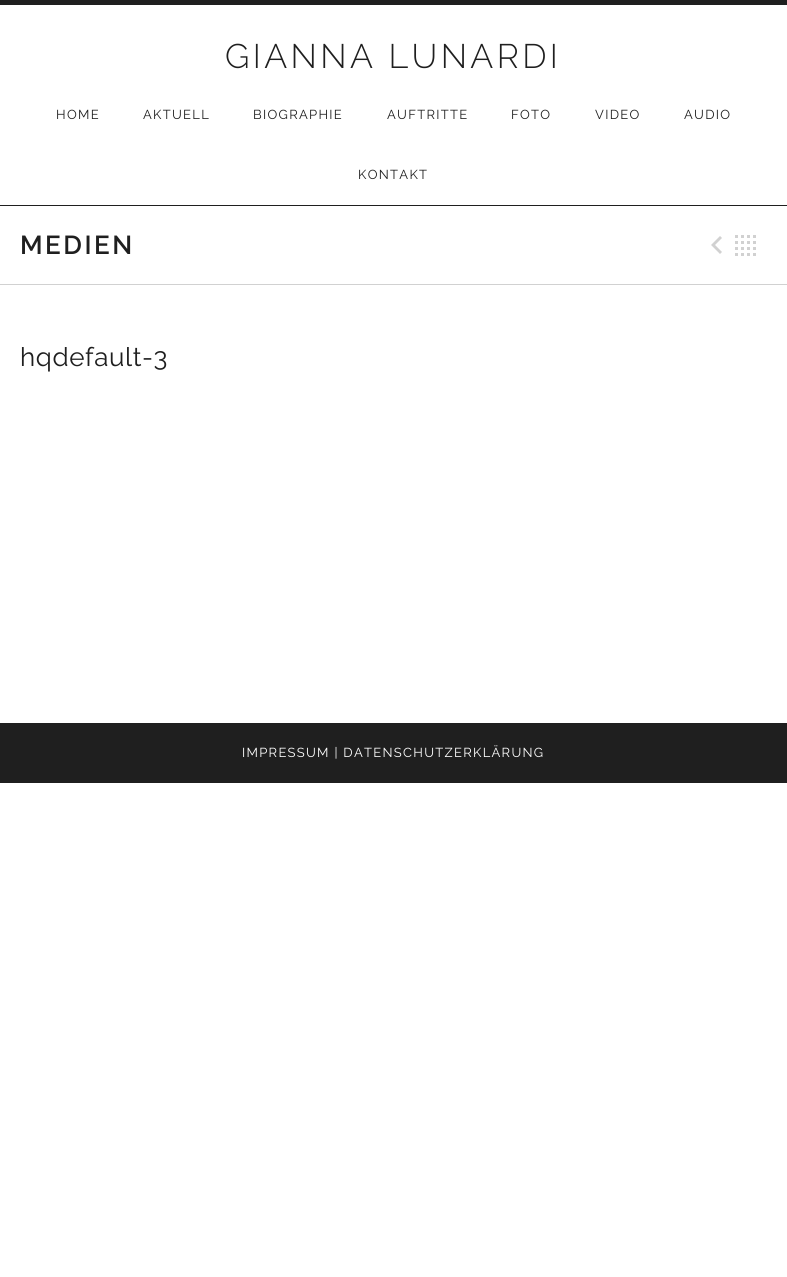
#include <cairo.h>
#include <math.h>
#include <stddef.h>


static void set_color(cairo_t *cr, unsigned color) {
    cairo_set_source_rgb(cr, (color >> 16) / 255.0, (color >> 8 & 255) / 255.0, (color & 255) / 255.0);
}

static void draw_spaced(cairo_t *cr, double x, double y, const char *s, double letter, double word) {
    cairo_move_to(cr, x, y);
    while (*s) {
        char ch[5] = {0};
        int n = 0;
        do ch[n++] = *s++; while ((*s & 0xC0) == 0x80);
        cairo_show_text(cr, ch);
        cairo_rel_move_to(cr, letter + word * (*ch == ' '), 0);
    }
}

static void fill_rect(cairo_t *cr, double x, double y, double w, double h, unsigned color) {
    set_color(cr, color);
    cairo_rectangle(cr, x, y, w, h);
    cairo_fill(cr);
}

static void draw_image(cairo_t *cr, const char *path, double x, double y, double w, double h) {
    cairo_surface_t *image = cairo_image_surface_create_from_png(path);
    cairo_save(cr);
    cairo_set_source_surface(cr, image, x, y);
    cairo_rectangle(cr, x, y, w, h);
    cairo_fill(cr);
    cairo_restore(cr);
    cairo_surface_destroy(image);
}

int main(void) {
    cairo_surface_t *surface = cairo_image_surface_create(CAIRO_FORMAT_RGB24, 787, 1277);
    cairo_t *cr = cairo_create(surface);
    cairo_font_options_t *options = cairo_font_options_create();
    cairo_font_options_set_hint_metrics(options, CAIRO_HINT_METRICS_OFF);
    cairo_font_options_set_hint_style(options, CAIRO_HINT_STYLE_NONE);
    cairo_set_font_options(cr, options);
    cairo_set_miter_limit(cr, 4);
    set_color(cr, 0xFFFFFF);
    cairo_paint(cr);
    fill_rect(cr, 0, 0, 787, 5, 0x1F1F1F);
    fill_rect(cr, 0, 205, 787, 1, 0x1F1F1F);
    cairo_select_font_face(cr, "Raleway Light", CAIRO_FONT_SLANT_NORMAL, CAIRO_FONT_WEIGHT_NORMAL);
    cairo_set_font_size(cr, 34);
    draw_spaced(cr, 225, 68, "GIANNA LUNARDI", 3.4, 0);
    cairo_select_font_face(cr, "Raleway", CAIRO_FONT_SLANT_NORMAL, CAIRO_FONT_WEIGHT_NORMAL);
    cairo_set_font_size(cr, 13);
    draw_spaced(cr, 56, 119, "HOME", 1.3, 0);
    draw_spaced(cr, 143, 119, "AKTUELL", 1.3, 0);
    draw_spaced(cr, 253, 119, "BIOGRAPHIE", 1.3, 0);
    draw_spaced(cr, 387, 119, "AUFTRITTE", 1.3, 0);
    draw_spaced(cr, 511, 119, "FOTO", 1.3, 0);
    draw_spaced(cr, 595, 119, "VIDEO", 1.3, 0);
    draw_spaced(cr, 684, 119, "AUDIO", 1.3, 0);
    draw_spaced(cr, 358, 179, "KONTAKT", 1.3, 0);
    fill_rect(cr, 0, 284, 787, 1, 0xD1D1D1);
    cairo_select_font_face(cr, "Raleway SemiBold", CAIRO_FONT_SLANT_NORMAL, CAIRO_FONT_WEIGHT_NORMAL);
    cairo_set_font_size(cr, 26);
    set_color(cr, 0x1F1F1F);
    draw_spaced(cr, 20, 254, "MEDIEN", 2.5, 0);
    set_color(cr, 0xD1D1D1);
    cairo_new_path(cr);
    cairo_move_to(cr, 722, 238);
    cairo_line_to(cr, 715, 245);
    cairo_line_to(cr, 722, 252);
    cairo_line_to(cr, 720, 254);
    cairo_line_to(cr, 711, 245);
    cairo_line_to(cr, 720, 236);
    cairo_close_path(cr);
    cairo_fill(cr);
    draw_image(cr, "assets/img1.png", 735, 235, 21, 21);
    cairo_select_font_face(cr, "Raleway", CAIRO_FONT_SLANT_NORMAL, CAIRO_FONT_WEIGHT_NORMAL);
    set_color(cr, 0x1F1F1F);
    draw_spaced(cr, 20, 366, "hqdefault-3", 0.6, 0);
    fill_rect(cr, 0, 723, 787, 60, 0x1F1F1F);
    cairo_set_font_size(cr, 13);
    set_color(cr, 0xFFFFFF);
    draw_spaced(cr, 242, 757, "IMPRESSUM | DATENSCHUTZERKLÄRUNG", 1.3, 0);
    cairo_surface_write_to_png(surface, "output.png");
    cairo_font_options_destroy(options);
    cairo_destroy(cr);
    cairo_surface_destroy(surface);
    return 0;
}
